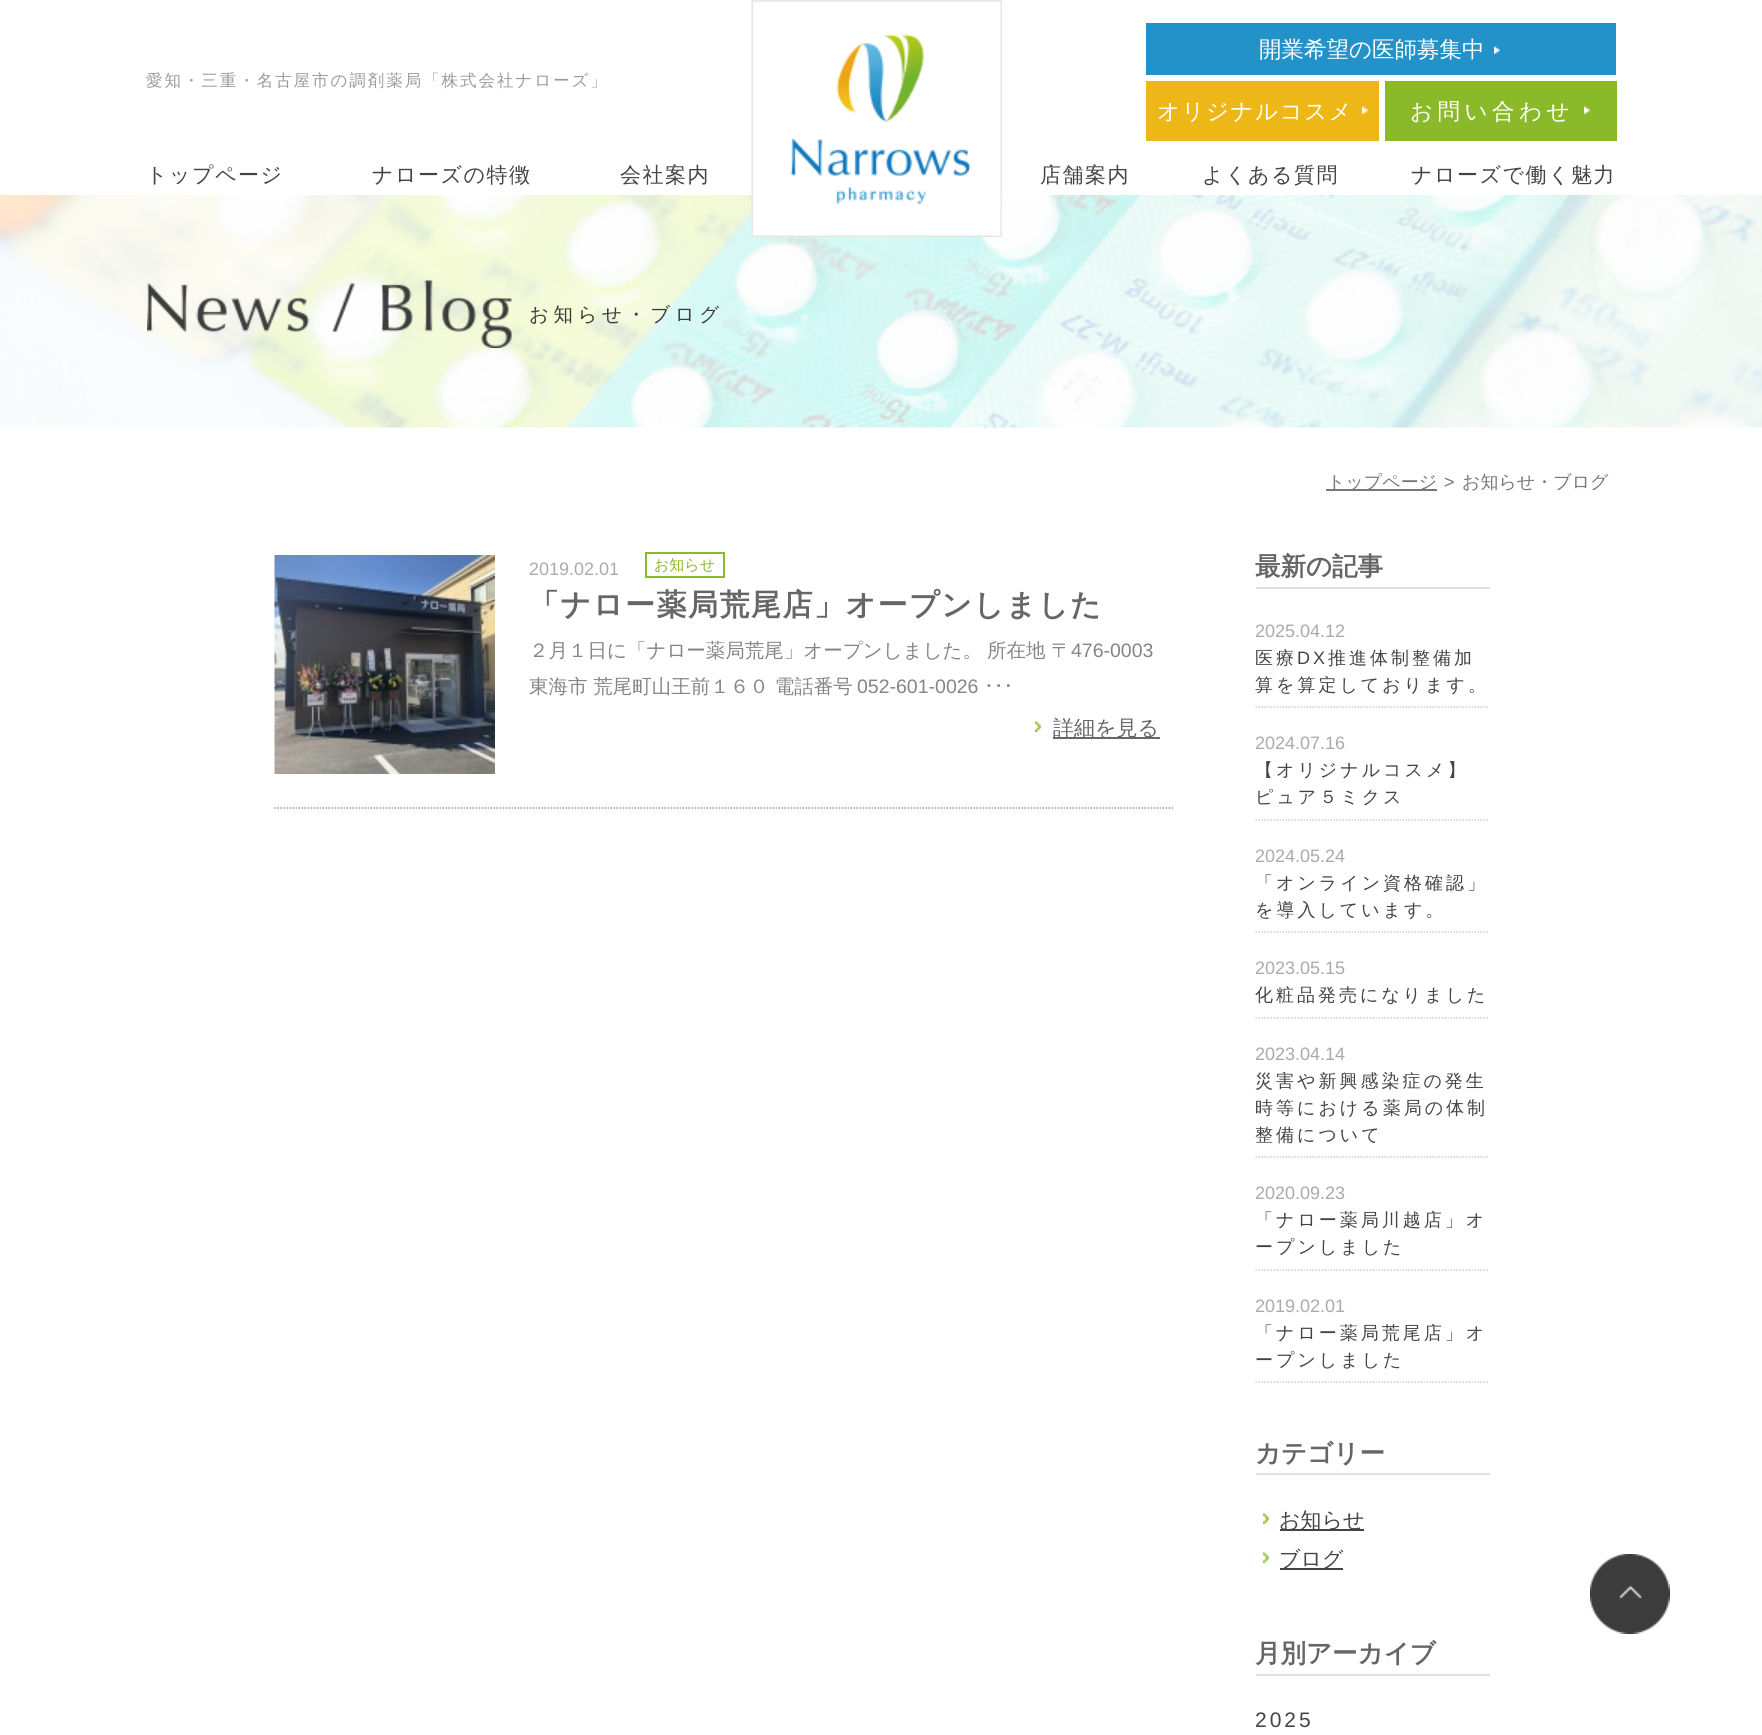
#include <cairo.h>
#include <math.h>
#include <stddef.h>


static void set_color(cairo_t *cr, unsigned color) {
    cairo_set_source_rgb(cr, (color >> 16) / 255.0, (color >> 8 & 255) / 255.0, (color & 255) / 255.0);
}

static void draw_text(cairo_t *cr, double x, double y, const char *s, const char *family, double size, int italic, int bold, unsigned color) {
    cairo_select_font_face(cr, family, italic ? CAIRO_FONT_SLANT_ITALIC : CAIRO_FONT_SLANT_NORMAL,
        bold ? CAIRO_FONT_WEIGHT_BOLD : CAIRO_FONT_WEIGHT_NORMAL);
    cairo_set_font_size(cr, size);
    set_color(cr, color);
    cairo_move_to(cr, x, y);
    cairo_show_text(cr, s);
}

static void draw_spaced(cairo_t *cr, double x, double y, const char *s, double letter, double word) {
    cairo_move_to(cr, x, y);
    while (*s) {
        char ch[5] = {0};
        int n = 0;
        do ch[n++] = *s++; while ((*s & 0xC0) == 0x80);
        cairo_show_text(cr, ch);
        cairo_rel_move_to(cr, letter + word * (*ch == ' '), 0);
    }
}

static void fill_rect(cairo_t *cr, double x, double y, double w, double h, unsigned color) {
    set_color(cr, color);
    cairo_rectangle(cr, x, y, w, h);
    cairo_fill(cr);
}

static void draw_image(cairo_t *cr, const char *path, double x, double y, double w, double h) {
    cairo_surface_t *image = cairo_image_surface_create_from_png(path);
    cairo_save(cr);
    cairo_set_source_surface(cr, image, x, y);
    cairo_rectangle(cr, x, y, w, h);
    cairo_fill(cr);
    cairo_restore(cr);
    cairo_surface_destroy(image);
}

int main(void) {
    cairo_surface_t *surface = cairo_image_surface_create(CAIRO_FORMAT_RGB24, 1762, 1735);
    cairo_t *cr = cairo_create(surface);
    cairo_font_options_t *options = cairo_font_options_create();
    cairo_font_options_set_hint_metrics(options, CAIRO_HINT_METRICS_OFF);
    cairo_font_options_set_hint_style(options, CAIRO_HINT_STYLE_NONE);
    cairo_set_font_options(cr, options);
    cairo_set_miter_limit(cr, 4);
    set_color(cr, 0xFFFFFF);
    cairo_paint(cr);
    draw_image(cr, "assets/img5.png", 0, 195, 1762, 233);
    draw_image(cr, "assets/img1.png", 751, 0, 251, 237);
    cairo_select_font_face(cr, "WenQuanYi Zen Hei Medium", CAIRO_FONT_SLANT_NORMAL, CAIRO_FONT_WEIGHT_NORMAL);
    cairo_set_font_size(cr, 16.5);
    set_color(cr, 0x9B9B9B);
    draw_spaced(cr, 146, 86, "愛知・三重・名古屋市の調剤薬局「株式会社ナローズ」", 1.95, 0);
    fill_rect(cr, 1146, 23, 470, 52, 0x2292C9);
    draw_image(cr, "assets/img2.png", 1494, 46, 6, 8);
    draw_text(cr, 1259, 57, "開業希望の医師募集中", "WenQuanYi Zen Hei Medium", 22.5, 0, 0, 0xFFFFFF);
    fill_rect(cr, 1146, 81, 233, 60, 0xEEB718);
    set_color(cr, 0xFFFFFF);
    draw_spaced(cr, 1157, 119, "オリジナルコスメ", 1.5, 0);
    draw_image(cr, "assets/img3.png", 1362, 106, 6, 8);
    fill_rect(cr, 1385, 81, 232, 60, 0x8AB92A);
    set_color(cr, 0xFFFFFF);
    draw_spaced(cr, 1410, 119, "お問い合わせ", 4.5, 0);
    draw_image(cr, "assets/img4.png", 1584, 106, 6, 8);
    cairo_set_font_size(cr, 21);
    set_color(cr, 0x444444);
    draw_spaced(cr, 146, 182, "トップページ", 1.5, 0);
    draw_spaced(cr, 372, 182, "ナローズの特徴", 1.5, 0);
    draw_spaced(cr, 620, 182, "会社案内", 1.5, 0);
    draw_spaced(cr, 1040, 182, "店舗案内", 1.5, 0);
    draw_spaced(cr, 1202, 182, "よくある質問", 1.5, 0);
    draw_spaced(cr, 1411, 182, "ナローズで働く魅力", 1.5, 0);
    draw_image(cr, "assets/img6.png", 147, 280, 365, 68);
    cairo_set_font_size(cr, 19.5);
    set_color(cr, 0x3C3C3C);
    draw_spaced(cr, 529, 321, "お知らせ・ブログ", 4.5, 0);
    fill_rect(cr, 1326, 489, 111, 2, 0x777777);
    draw_text(cr, 1327, 488, "トップページ", "WenQuanYi Zen Hei Medium", 18, 0, 0, 0x777777);
    draw_text(cr, 1444, 488, ">", "Liberation Sans", 18, 0, 0, 0x777777);
    draw_text(cr, 1462, 488, "お知らせ・ブログ", "WenQuanYi Zen Hei Medium", 18, 0, 0, 0x777777);
    cairo_new_path(cr);
    cairo_move_to(cr, 274.5, 808);
    cairo_line_to(cr, 1174.5, 808);
    set_color(cr, 0x999999);
    cairo_set_line_width(cr, 1.5);
    cairo_set_dash(cr, (double[]){1.5, 1.5}, 2, 0);
    cairo_stroke(cr);
    draw_image(cr, "assets/img7.png", 274, 555, 221, 219);
    draw_text(cr, 529, 575, "2019.02.01", "Liberation Sans", 18, 0, 0, 0xAAAAAA);
    cairo_rectangle(cr, 646, 553, 78, 24);
    set_color(cr, 0x8AB92A);
    cairo_set_line_width(cr, 2);
    cairo_set_dash(cr, NULL, 0, 0);
    cairo_stroke(cr);
    draw_text(cr, 654, 570, "お知らせ", "WenQuanYi Zen Hei Medium", 15, 0, 0, 0x8AB92A);
    cairo_select_font_face(cr, "WenQuanYi Zen Hei", CAIRO_FONT_SLANT_NORMAL, CAIRO_FONT_WEIGHT_BOLD);
    cairo_set_font_size(cr, 30);
    set_color(cr, 0x666666);
    draw_spaced(cr, 529, 615, "「ナロー薬局荒尾店」オープンしました", 1.5, 0);
    draw_text(cr, 529, 657, "２月１日に「ナロー薬局荒尾」オープンしました。", "WenQuanYi Zen Hei Medium", 19.5, 0, 0, 0x858585);
    draw_text(cr, 987, 657, "所在地 〒", "WenQuanYi Zen Hei Medium", 19.5, 0, 0, 0x858585);
    draw_text(cr, 1071, 657, "476-0003", "Liberation Sans", 19.5, 0, 0, 0x858585);
    draw_text(cr, 529, 693, "東海市 荒尾町山王前１６０ 電話番号", "WenQuanYi Zen Hei Medium", 19.5, 0, 0, 0x858585);
    draw_text(cr, 857, 693, "052-601-0026", "Liberation Sans", 19.5, 0, 0, 0x858585);
    draw_text(cr, 984, 693, "･･･", "IPAPGothic", 19.5, 0, 0, 0x858585);
    draw_image(cr, "assets/img8.png", 1035, 721, 6, 11);
    fill_rect(cr, 1053, 737, 107, 2, 0x666666);
    draw_text(cr, 1053, 735, "詳細を見る", "WenQuanYi Zen Hei Medium", 21, 0, 0, 0x666666);
    fill_rect(cr, 1256, 587, 234, 2, 0xE0E0E0);
    draw_text(cr, 1255, 575, "最新の記事", "WenQuanYi Zen Hei", 25.5, 0, 1, 0x666666);
    cairo_new_path(cr);
    cairo_move_to(cr, 1255.5, 707);
    cairo_line_to(cr, 1489.5, 707);
    set_color(cr, 0xCCCCCC);
    cairo_set_line_width(cr, 1.5);
    cairo_set_dash(cr, (double[]){1.5, 1.5}, 2, 0);
    cairo_stroke(cr);
    draw_text(cr, 1255, 637, "2025.04.12", "Liberation Sans", 18, 0, 0, 0xAAAAAA);
    cairo_select_font_face(cr, "WenQuanYi Zen Hei Medium", CAIRO_FONT_SLANT_NORMAL, CAIRO_FONT_WEIGHT_NORMAL);
    set_color(cr, 0x444444);
    draw_spaced(cr, 1255, 664, "医療", 3, 0);
    cairo_select_font_face(cr, "Liberation Sans", CAIRO_FONT_SLANT_NORMAL, CAIRO_FONT_WEIGHT_NORMAL);
    draw_spaced(cr, 1297, 664, "DX", 3, 0);
    cairo_select_font_face(cr, "WenQuanYi Zen Hei Medium", CAIRO_FONT_SLANT_NORMAL, CAIRO_FONT_WEIGHT_NORMAL);
    draw_spaced(cr, 1328, 664, "推進体制整備加", 3, 0);
    draw_spaced(cr, 1255, 691, "算を算定しております。", 3, 0);
    cairo_new_path(cr);
    cairo_move_to(cr, 1255.5, 820);
    cairo_line_to(cr, 1489.5, 820);
    set_color(cr, 0xCCCCCC);
    cairo_stroke(cr);
    draw_text(cr, 1255, 749, "2024.07.16", "Liberation Sans", 18, 0, 0, 0xAAAAAA);
    cairo_select_font_face(cr, "WenQuanYi Zen Hei Medium", CAIRO_FONT_SLANT_NORMAL, CAIRO_FONT_WEIGHT_NORMAL);
    set_color(cr, 0x444444);
    draw_spaced(cr, 1255, 776, "【オリジナルコスメ】", 3, 0);
    draw_spaced(cr, 1255, 803, "ピュア５ミクス", 3, 0);
    cairo_new_path(cr);
    cairo_move_to(cr, 1255.5, 932);
    cairo_line_to(cr, 1489.5, 932);
    set_color(cr, 0xCCCCCC);
    cairo_stroke(cr);
    draw_text(cr, 1255, 862, "2024.05.24", "Liberation Sans", 18, 0, 0, 0xAAAAAA);
    cairo_select_font_face(cr, "WenQuanYi Zen Hei Medium", CAIRO_FONT_SLANT_NORMAL, CAIRO_FONT_WEIGHT_NORMAL);
    set_color(cr, 0x444444);
    draw_spaced(cr, 1255, 889, "「オンライン資格確認」", 3, 0);
    draw_spaced(cr, 1255, 916, "を導入しています。", 3, 0);
    cairo_new_path(cr);
    cairo_move_to(cr, 1255.5, 1018);
    cairo_line_to(cr, 1489.5, 1018);
    set_color(cr, 0xCCCCCC);
    cairo_stroke(cr);
    draw_text(cr, 1255, 974, "2023.05.15", "Liberation Sans", 18, 0, 0, 0xAAAAAA);
    cairo_select_font_face(cr, "WenQuanYi Zen Hei Medium", CAIRO_FONT_SLANT_NORMAL, CAIRO_FONT_WEIGHT_NORMAL);
    set_color(cr, 0x444444);
    draw_spaced(cr, 1255, 1001, "化粧品発売になりました", 3, 0);
    cairo_new_path(cr);
    cairo_move_to(cr, 1255.5, 1157);
    cairo_line_to(cr, 1489.5, 1157);
    set_color(cr, 0xCCCCCC);
    cairo_stroke(cr);
    draw_text(cr, 1255, 1060, "2023.04.14", "Liberation Sans", 18, 0, 0, 0xAAAAAA);
    cairo_select_font_face(cr, "WenQuanYi Zen Hei Medium", CAIRO_FONT_SLANT_NORMAL, CAIRO_FONT_WEIGHT_NORMAL);
    set_color(cr, 0x444444);
    draw_spaced(cr, 1255, 1087, "災害や新興感染症の発生", 3, 0);
    draw_spaced(cr, 1255, 1114, "時等における薬局の体制", 3, 0);
    draw_spaced(cr, 1255, 1141, "整備について", 3, 0);
    cairo_new_path(cr);
    cairo_move_to(cr, 1255.5, 1270);
    cairo_line_to(cr, 1489.5, 1270);
    set_color(cr, 0xCCCCCC);
    cairo_stroke(cr);
    draw_text(cr, 1255, 1199, "2020.09.23", "Liberation Sans", 18, 0, 0, 0xAAAAAA);
    cairo_select_font_face(cr, "WenQuanYi Zen Hei Medium", CAIRO_FONT_SLANT_NORMAL, CAIRO_FONT_WEIGHT_NORMAL);
    set_color(cr, 0x444444);
    draw_spaced(cr, 1255, 1226, "「ナロー薬局川越店」オ", 3, 0);
    draw_spaced(cr, 1255, 1253, "ープンしました", 3, 0);
    cairo_new_path(cr);
    cairo_move_to(cr, 1255.5, 1382);
    cairo_line_to(cr, 1489.5, 1382);
    set_color(cr, 0xCCCCCC);
    cairo_stroke(cr);
    draw_text(cr, 1255, 1312, "2019.02.01", "Liberation Sans", 18, 0, 0, 0xAAAAAA);
    cairo_select_font_face(cr, "WenQuanYi Zen Hei Medium", CAIRO_FONT_SLANT_NORMAL, CAIRO_FONT_WEIGHT_NORMAL);
    set_color(cr, 0x444444);
    draw_spaced(cr, 1255, 1339, "「ナロー薬局荒尾店」オ", 3, 0);
    draw_spaced(cr, 1255, 1366, "ープンしました", 3, 0);
    fill_rect(cr, 1256, 1473, 234, 2, 0xE0E0E0);
    draw_text(cr, 1255, 1462, "カテゴリー", "WenQuanYi Zen Hei", 25.5, 0, 1, 0x666666);
    draw_image(cr, "assets/img8.png", 1263, 1513, 6, 11);
    fill_rect(cr, 1280, 1529, 84, 2, 0x444444);
    draw_text(cr, 1279, 1527, "お知らせ", "WenQuanYi Zen Hei Medium", 21, 0, 0, 0x444444);
    draw_image(cr, "assets/img8.png", 1263, 1552, 6, 11);
    fill_rect(cr, 1280, 1568, 63, 2, 0x444444);
    draw_text(cr, 1279, 1566, "ブログ", "WenQuanYi Zen Hei Medium", 21, 0, 0, 0x444444);
    fill_rect(cr, 1256, 1674, 234, 2, 0xE0E0E0);
    draw_text(cr, 1255, 1662, "月別アーカイブ", "WenQuanYi Zen Hei", 25.5, 0, 1, 0x666666);
    cairo_select_font_face(cr, "Liberation Sans", CAIRO_FONT_SLANT_NORMAL, CAIRO_FONT_WEIGHT_NORMAL);
    cairo_set_font_size(cr, 21);
    set_color(cr, 0x444444);
    draw_spaced(cr, 1255, 1727, "2025", 3, 0);
    draw_image(cr, "assets/img9.png", 1590, 1554, 80, 80);
    cairo_surface_write_to_png(surface, "output.png");
    cairo_font_options_destroy(options);
    cairo_destroy(cr);
    cairo_surface_destroy(surface);
    return 0;
}
